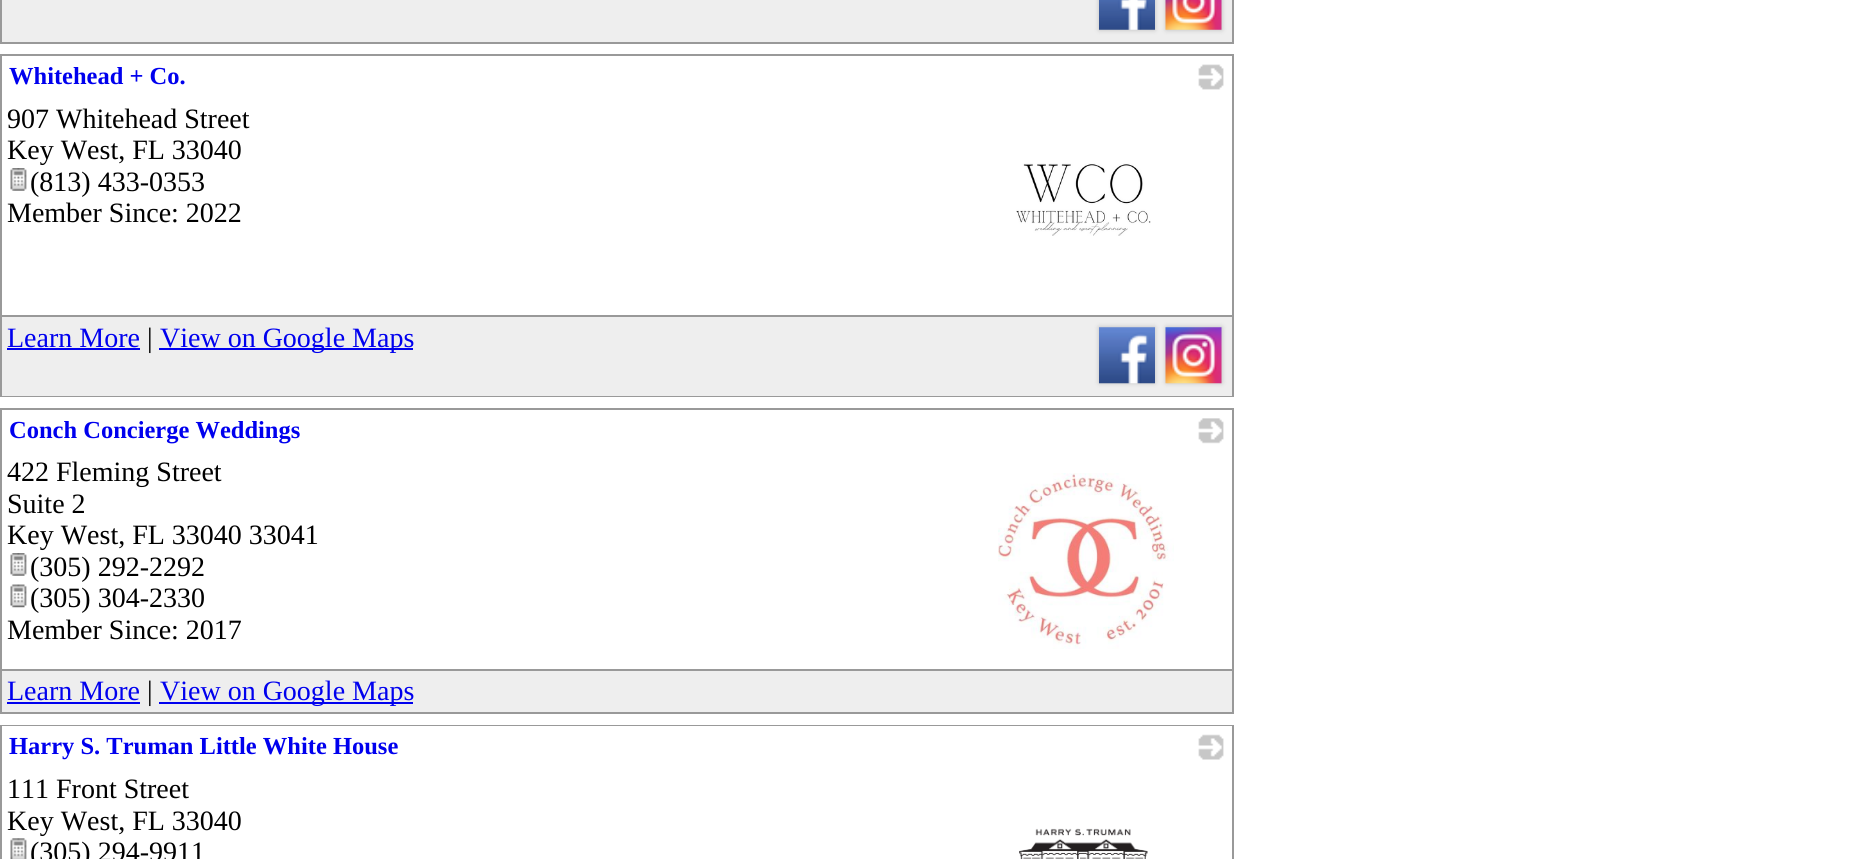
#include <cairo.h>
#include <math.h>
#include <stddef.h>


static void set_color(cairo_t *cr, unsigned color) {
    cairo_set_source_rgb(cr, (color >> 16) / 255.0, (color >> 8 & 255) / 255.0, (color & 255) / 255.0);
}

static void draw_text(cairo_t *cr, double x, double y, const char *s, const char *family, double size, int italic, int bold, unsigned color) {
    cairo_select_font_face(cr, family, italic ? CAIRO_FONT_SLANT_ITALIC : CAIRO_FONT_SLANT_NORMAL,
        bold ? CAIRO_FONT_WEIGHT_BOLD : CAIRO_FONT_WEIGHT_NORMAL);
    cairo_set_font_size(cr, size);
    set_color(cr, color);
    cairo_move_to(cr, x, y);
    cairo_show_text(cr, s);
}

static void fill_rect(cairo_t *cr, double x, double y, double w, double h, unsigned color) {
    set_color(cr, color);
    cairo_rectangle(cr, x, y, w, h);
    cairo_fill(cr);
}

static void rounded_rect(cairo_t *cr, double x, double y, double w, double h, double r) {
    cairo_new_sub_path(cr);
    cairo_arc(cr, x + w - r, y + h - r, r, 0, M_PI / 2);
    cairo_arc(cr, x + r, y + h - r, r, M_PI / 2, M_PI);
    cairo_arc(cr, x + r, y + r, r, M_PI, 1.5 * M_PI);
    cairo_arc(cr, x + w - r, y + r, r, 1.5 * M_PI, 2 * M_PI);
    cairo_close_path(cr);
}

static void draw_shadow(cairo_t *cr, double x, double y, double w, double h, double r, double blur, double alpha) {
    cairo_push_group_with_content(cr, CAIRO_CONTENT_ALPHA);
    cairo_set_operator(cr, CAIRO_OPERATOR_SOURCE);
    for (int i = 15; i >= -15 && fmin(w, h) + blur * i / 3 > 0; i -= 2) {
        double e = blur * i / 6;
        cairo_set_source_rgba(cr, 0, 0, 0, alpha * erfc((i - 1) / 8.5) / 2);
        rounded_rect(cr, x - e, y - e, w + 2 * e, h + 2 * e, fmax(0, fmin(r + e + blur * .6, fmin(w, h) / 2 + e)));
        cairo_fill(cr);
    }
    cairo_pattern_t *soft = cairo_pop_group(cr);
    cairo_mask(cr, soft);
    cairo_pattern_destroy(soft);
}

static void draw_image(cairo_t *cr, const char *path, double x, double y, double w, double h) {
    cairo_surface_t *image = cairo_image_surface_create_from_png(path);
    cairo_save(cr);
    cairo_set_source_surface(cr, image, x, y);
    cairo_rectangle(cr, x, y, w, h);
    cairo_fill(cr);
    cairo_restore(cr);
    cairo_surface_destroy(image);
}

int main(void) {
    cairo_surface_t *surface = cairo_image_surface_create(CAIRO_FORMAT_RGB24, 1868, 859);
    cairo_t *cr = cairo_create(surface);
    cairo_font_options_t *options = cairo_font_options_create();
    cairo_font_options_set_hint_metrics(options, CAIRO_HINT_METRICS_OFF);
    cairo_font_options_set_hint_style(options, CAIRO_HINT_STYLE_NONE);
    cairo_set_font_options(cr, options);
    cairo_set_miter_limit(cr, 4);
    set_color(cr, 0xFFFFFF);
    cairo_paint(cr);
    cairo_rectangle(cr, 1, -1, 1232, 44);
    set_color(cr, 0x999999);
    cairo_stroke(cr);
    fill_rect(cr, 2, 0, 1230, 42, 0xEEEEEE);
    set_color(cr, 0x000000);
    draw_shadow(cr, 1099, -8, 56, 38, 0, 2.5, 0.2);
    draw_image(cr, "assets/img1.png", 1099, 0, 56, 30);
    draw_shadow(cr, 1166, -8, 56, 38, 0, 2.5, 0.2);
    draw_image(cr, "assets/img2.png", 1165, 0, 57, 30);
    cairo_rectangle(cr, 1, 55, 1232, 341);
    set_color(cr, 0x999999);
    cairo_stroke(cr);
    draw_text(cr, 9, 84, "Whitehead + Co.", "Liberation Serif", 24.5, 0, 1, 0x0000EE);
    draw_image(cr, "assets/img3.png", 1198, 64, 26, 26);
    draw_text(cr, 7, 128, "907 Whitehead Street", "Liberation Serif", 28, 0, 0, 0x000000);
    draw_text(cr, 7, 159, "Key West, FL 33040", "Liberation Serif", 28, 0, 0, 0x000000);
    draw_image(cr, "assets/img4.png", 10, 168, 17, 23);
    draw_text(cr, 30, 191, "(813) 433-0353", "Liberation Serif", 28, 0, 0, 0x000000);
    draw_text(cr, 7, 222, "Member Since: 2022", "Liberation Serif", 28, 0, 0, 0x000000);
    draw_image(cr, "assets/img5.png", 1016, 163, 135, 73);
    fill_rect(cr, 2, 317, 1230, 79, 0xEEEEEE);
    fill_rect(cr, 2, 315, 1230, 2, 0x999999);
    draw_text(cr, 7, 347, "Learn More", "Liberation Serif", 28, 0, 0, 0x0000EE);
    fill_rect(cr, 7, 348, 133, 2, 0x0000EE);
    draw_text(cr, 147, 347, "|", "Liberation Serif", 28, 0, 0, 0x000000);
    fill_rect(cr, 159, 348, 254, 2, 0x0000EE);
    draw_text(cr, 160, 347, "View on Google Maps", "Liberation Serif", 28, 0, 0, 0x0000EE);
    set_color(cr, 0x000000);
    draw_shadow(cr, 1099, 327, 56, 56, 0, 2.5, 0.2);
    draw_shadow(cr, 1166, 327, 56, 56, 0, 2.5, 0.2);
    draw_image(cr, "assets/img6.png", 1099, 327, 56, 57);
    draw_image(cr, "assets/img7.png", 1165, 327, 57, 57);
    cairo_rectangle(cr, 1, 409, 1232, 304);
    set_color(cr, 0x999999);
    cairo_stroke(cr);
    draw_text(cr, 9, 438, "Conch Concierge Weddings", "Liberation Serif", 24.5, 0, 1, 0x0000EE);
    draw_image(cr, "assets/img8.png", 1198, 418, 26, 26);
    draw_text(cr, 7, 481, "422 Fleming Street", "Liberation Serif", 28, 0, 0, 0x000000);
    draw_text(cr, 7, 513, "Suite 2", "Liberation Serif", 28, 0, 0, 0x000000);
    draw_text(cr, 7, 544, "Key West, FL 33040 33041", "Liberation Serif", 28, 0, 0, 0x000000);
    draw_image(cr, "assets/img4.png", 10, 553, 17, 23);
    draw_text(cr, 30, 576, "(305) 292-2292", "Liberation Serif", 28, 0, 0, 0x000000);
    draw_image(cr, "assets/img9.png", 10, 584, 17, 24);
    draw_text(cr, 30, 607, "(305) 304-2330", "Liberation Serif", 28, 0, 0, 0x000000);
    draw_text(cr, 7, 639, "Member Since: 2017", "Liberation Serif", 28, 0, 0, 0x000000);
    draw_image(cr, "assets/img10.png", 998, 473, 176, 176);
    fill_rect(cr, 2, 671, 1230, 41, 0xEEEEEE);
    fill_rect(cr, 2, 669, 1230, 2, 0x999999);
    draw_text(cr, 7, 700, "Learn More", "Liberation Serif", 28, 0, 0, 0x0000EE);
    fill_rect(cr, 7, 702, 133, 2, 0x0000EE);
    draw_text(cr, 147, 700, "|", "Liberation Serif", 28, 0, 0, 0x000000);
    fill_rect(cr, 159, 702, 254, 2, 0x0000EE);
    draw_text(cr, 160, 700, "View on Google Maps", "Liberation Serif", 28, 0, 0, 0x0000EE);
    cairo_rectangle(cr, 1, 726, 1232, 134);
    set_color(cr, 0x999999);
    cairo_stroke(cr);
    fill_rect(cr, 2, 726, 1230, 1, 0xFFFFFF);
    draw_text(cr, 9, 754, "Harry S. Truman Little White House", "Liberation Serif", 24.5, 0, 1, 0x0000EE);
    draw_image(cr, "assets/img11.png", 1198, 734, 26, 26);
    draw_text(cr, 7, 798, "111 Front Street", "Liberation Serif", 28, 0, 0, 0x000000);
    draw_text(cr, 7, 830, "Key West, FL 33040", "Liberation Serif", 28, 0, 0, 0x000000);
    draw_image(cr, "assets/img12.png", 10, 838, 17, 21);
    draw_text(cr, 30, 861, "(305) 294-9911", "Liberation Serif", 28, 0, 0, 0x000000);
    draw_image(cr, "assets/img13.png", 1019, 828, 129, 31);
    cairo_surface_write_to_png(surface, "output.png");
    cairo_font_options_destroy(options);
    cairo_destroy(cr);
    cairo_surface_destroy(surface);
    return 0;
}
